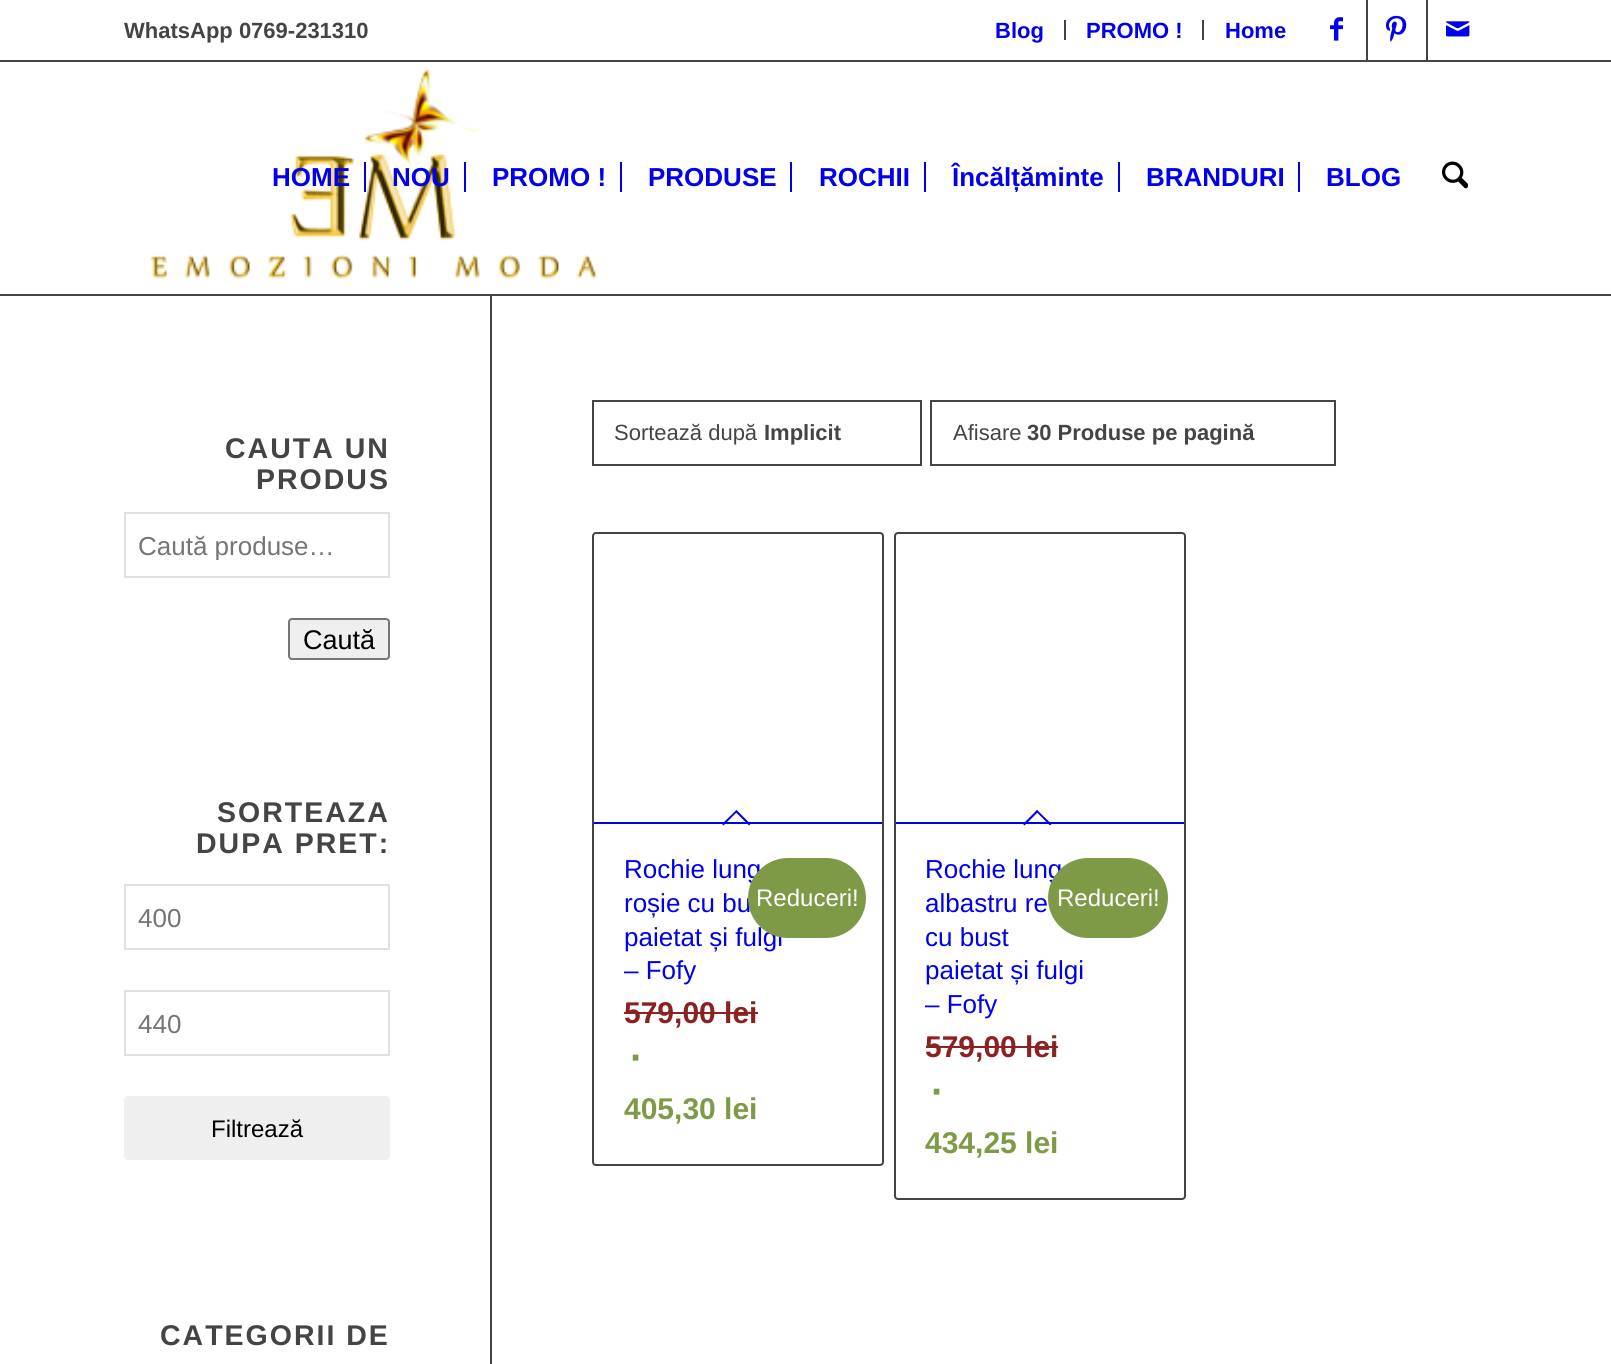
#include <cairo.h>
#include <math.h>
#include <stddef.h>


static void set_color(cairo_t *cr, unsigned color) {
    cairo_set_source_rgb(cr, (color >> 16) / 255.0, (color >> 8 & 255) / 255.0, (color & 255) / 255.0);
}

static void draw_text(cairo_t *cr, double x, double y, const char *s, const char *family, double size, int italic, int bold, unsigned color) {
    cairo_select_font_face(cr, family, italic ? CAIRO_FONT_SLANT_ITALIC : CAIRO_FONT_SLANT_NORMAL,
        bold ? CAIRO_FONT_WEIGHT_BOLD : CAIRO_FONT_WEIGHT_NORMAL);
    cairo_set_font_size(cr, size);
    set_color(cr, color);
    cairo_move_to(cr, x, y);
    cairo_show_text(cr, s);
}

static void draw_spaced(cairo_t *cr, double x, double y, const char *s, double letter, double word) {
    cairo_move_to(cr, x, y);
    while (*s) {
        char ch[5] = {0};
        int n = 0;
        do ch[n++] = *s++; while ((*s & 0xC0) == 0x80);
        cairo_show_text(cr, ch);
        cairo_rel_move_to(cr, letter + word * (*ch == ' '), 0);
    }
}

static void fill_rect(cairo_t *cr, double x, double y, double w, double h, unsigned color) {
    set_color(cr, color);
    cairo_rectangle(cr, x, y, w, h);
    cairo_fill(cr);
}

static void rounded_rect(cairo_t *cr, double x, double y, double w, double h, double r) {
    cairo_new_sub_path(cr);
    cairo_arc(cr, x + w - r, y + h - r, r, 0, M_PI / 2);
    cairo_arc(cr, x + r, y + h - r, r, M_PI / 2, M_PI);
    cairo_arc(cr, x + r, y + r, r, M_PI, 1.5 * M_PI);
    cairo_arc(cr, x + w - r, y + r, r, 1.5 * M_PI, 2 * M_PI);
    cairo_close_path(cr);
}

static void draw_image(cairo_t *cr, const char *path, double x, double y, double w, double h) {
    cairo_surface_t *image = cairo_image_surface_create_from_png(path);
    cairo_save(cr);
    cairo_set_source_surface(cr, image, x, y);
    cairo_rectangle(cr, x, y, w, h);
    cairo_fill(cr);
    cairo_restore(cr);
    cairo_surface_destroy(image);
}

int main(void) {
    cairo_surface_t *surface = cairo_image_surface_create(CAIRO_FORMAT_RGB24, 1611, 1364);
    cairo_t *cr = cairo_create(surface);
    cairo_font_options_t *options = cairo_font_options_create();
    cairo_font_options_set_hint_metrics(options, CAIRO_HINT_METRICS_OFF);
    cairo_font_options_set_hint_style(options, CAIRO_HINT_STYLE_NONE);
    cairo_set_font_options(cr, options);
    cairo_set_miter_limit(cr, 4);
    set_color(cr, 0xFFFFFF);
    cairo_paint(cr);
    draw_text(cr, 124, 38, "WhatsApp 0769-231310", "Liberation Sans", 22, 0, 1, 0x444444);
    fill_rect(cr, 1064, 20, 2, 20, 0x444444);
    draw_text(cr, 995, 38, "Blog", "Liberation Sans", 22, 0, 1, 0x0000EE);
    fill_rect(cr, 1202, 20, 2, 20, 0x444444);
    draw_text(cr, 1086, 38, "PROMO !", "Liberation Sans", 22, 0, 1, 0x0000EE);
    draw_text(cr, 1225, 38, "Home", "Liberation Sans", 22, 0, 1, 0x0000EE);
    fill_rect(cr, 1366, 0, 2, 60, 0x444444);
    draw_image(cr, "assets/img1.png", 1330, 17, 13, 24);
    fill_rect(cr, 1426, 0, 2, 60, 0x444444);
    draw_image(cr, "assets/img2.png", 1386, 15, 21, 27);
    draw_image(cr, "assets/img3.png", 1446, 21, 24, 16);
    fill_rect(cr, 0, 60, 1611, 2, 0x444444);
    fill_rect(cr, 490, 294, 2, 1070, 0x444444);
    fill_rect(cr, 0, 294, 1611, 2, 0x444444);
    draw_image(cr, "assets/img4.png", 150, 69, 448, 211);
    draw_text(cr, 272, 186, "HOME", "Liberation Sans", 26, 0, 1, 0x0000EE);
    draw_text(cr, 392, 186, "NOU", "Liberation Sans", 26, 0, 1, 0x0000EE);
    fill_rect(cr, 364, 162, 2, 30, 0x0000EE);
    draw_text(cr, 492, 186, "PROMO !", "Liberation Sans", 26, 0, 1, 0x0000EE);
    fill_rect(cr, 464, 162, 2, 30, 0x0000EE);
    draw_text(cr, 648, 186, "PRODUSE", "Liberation Sans", 26, 0, 1, 0x0000EE);
    fill_rect(cr, 620, 162, 2, 30, 0x0000EE);
    draw_text(cr, 819, 186, "ROCHII", "Liberation Sans", 26, 0, 1, 0x0000EE);
    fill_rect(cr, 790, 162, 2, 30, 0x0000EE);
    draw_text(cr, 952, 186, "Încălțăminte", "Liberation Sans", 26, 0, 1, 0x0000EE);
    fill_rect(cr, 924, 162, 2, 30, 0x0000EE);
    draw_text(cr, 1146, 186, "BRANDURI", "Liberation Sans", 26, 0, 1, 0x0000EE);
    fill_rect(cr, 1118, 162, 2, 30, 0x0000EE);
    draw_text(cr, 1326, 186, "BLOG", "Liberation Sans", 26, 0, 1, 0x0000EE);
    fill_rect(cr, 1298, 162, 2, 30, 0x0000EE);
    draw_image(cr, "assets/img5.png", 1442, 161, 26, 28);
    cairo_set_font_size(cr, 28.5);
    set_color(cr, 0x444444);
    draw_spaced(cr, 225, 458, "CAUTA UN", 2, 0);
    draw_spaced(cr, 256, 489, "PRODUS", 2, 0);
    cairo_rectangle(cr, 125, 513, 264, 64);
    set_color(cr, 0xE1E1E1);
    cairo_stroke(cr);
    cairo_save(cr);
    cairo_rectangle(cr, 138, 530, 212, 30);
    cairo_clip(cr);
    draw_text(cr, 138, 555, "Caută produse…", "Liberation Sans", 26, 0, 0, 0x757575);
    cairo_restore(cr);
    set_color(cr, 0xEFEFEF);
    rounded_rect(cr, 289, 619, 100, 40, 3);
    cairo_fill_preserve(cr);
    set_color(cr, 0x767676);
    cairo_stroke(cr);
    draw_text(cr, 303, 649, "Caută", "Liberation Sans", 27, 0, 0, 0x000000);
    cairo_select_font_face(cr, "Liberation Sans", CAIRO_FONT_SLANT_NORMAL, CAIRO_FONT_WEIGHT_BOLD);
    cairo_set_font_size(cr, 28.5);
    set_color(cr, 0x444444);
    draw_spaced(cr, 217, 822, "SORTEAZA", 2, 0);
    draw_spaced(cr, 196, 853, "DUPA PRET:", 2, 0);
    cairo_rectangle(cr, 125, 885, 264, 64);
    set_color(cr, 0xE1E1E1);
    cairo_stroke(cr);
    draw_text(cr, 138, 927, "400", "Liberation Sans", 26, 0, 0, 0x757575);
    cairo_rectangle(cr, 125, 991, 264, 64);
    set_color(cr, 0xE1E1E1);
    cairo_stroke(cr);
    draw_text(cr, 138, 1033, "440", "Liberation Sans", 26, 0, 0, 0x757575);
    set_color(cr, 0xEFEFEF);
    rounded_rect(cr, 124, 1096, 266, 64, 4);
    cairo_fill(cr);
    draw_text(cr, 211, 1137, "Filtrează", "Liberation Sans", 24, 0, 0, 0x000000);
    cairo_select_font_face(cr, "Liberation Sans", CAIRO_FONT_SLANT_NORMAL, CAIRO_FONT_WEIGHT_BOLD);
    cairo_set_font_size(cr, 28.5);
    set_color(cr, 0x444444);
    draw_spaced(cr, 160, 1345, "CATEGORII DE", 2, 0);
    cairo_rectangle(cr, 593, 401, 328, 64);
    cairo_stroke(cr);
    draw_text(cr, 614, 440, "Sortează după", "Liberation Sans", 22, 0, 0, 0x444444);
    draw_text(cr, 764, 440, "Implicit", "Liberation Sans", 22, 0, 1, 0x444444);
    cairo_rectangle(cr, 931, 401, 404, 64);
    cairo_stroke(cr);
    draw_text(cr, 953, 440, "Afisare", "Liberation Sans", 22, 0, 0, 0x444444);
    draw_text(cr, 1027, 440, "30 Produse pe pagină", "Liberation Sans", 22, 0, 1, 0x444444);
    rounded_rect(cr, 593, 533, 290, 632, 3);
    cairo_stroke(cr);
    fill_rect(cr, 594, 822, 288, 2, 0x0000EE);
    cairo_new_path(cr);
    cairo_move_to(cr, 736.5, 810);
    cairo_line_to(cr, 750.5, 824);
    cairo_line_to(cr, 749, 825.5);
    cairo_line_to(cr, 735, 811.5);
    cairo_close_path(cr);
    cairo_fill(cr);
    cairo_new_path(cr);
    cairo_move_to(cr, 736.5, 810);
    cairo_line_to(cr, 737.5, 811.5);
    cairo_line_to(cr, 723.5, 825.5);
    cairo_line_to(cr, 722, 824);
    cairo_close_path(cr);
    cairo_fill(cr);
    draw_text(cr, 624, 878, "Rochie lung", "Liberation Sans", 26, 0, 0, 0x0000EE);
    draw_text(cr, 624, 912, "roșie cu bu", "Liberation Sans", 26, 0, 0, 0x0000EE);
    draw_text(cr, 624, 946, "paietat și fulgi", "Liberation Sans", 26, 0, 0, 0x0000EE);
    draw_text(cr, 624, 979, "– Fofy", "Liberation Sans", 26, 0, 0, 0x0000EE);
    set_color(cr, 0x7E9A47);
    rounded_rect(cr, 748, 858, 118, 80, 40);
    cairo_fill(cr);
    draw_text(cr, 756, 906, "Reduceri!", "Liberation Sans", 24, 0, 0, 0xFFFFFF);
    draw_text(cr, 624, 1023, "579,00 lei", "Liberation Sans", 30, 0, 1, 0x8B2121);
    fill_rect(cr, 624, 1012, 134, 2, 0x8B2121);
    draw_text(cr, 630, 1071, "∙", "Liberation Sans", 40, 0, 1, 0x7E9A47);
    draw_text(cr, 624, 1119, "405,30 lei", "Liberation Sans", 30, 0, 1, 0x7E9A47);
    rounded_rect(cr, 895, 533, 290, 666, 3);
    set_color(cr, 0x444444);
    cairo_stroke(cr);
    fill_rect(cr, 896, 822, 288, 2, 0x0000EE);
    cairo_new_path(cr);
    cairo_move_to(cr, 1037, 810);
    cairo_line_to(cr, 1051.5, 824);
    cairo_line_to(cr, 1050, 825.5);
    cairo_line_to(cr, 1036, 811.5);
    cairo_close_path(cr);
    cairo_fill(cr);
    cairo_new_path(cr);
    cairo_move_to(cr, 1037, 810);
    cairo_line_to(cr, 1038.5, 811.5);
    cairo_line_to(cr, 1024.5, 825.5);
    cairo_line_to(cr, 1023, 824);
    cairo_close_path(cr);
    cairo_fill(cr);
    draw_text(cr, 925, 878, "Rochie lung", "Liberation Sans", 26, 0, 0, 0x0000EE);
    draw_text(cr, 925, 912, "albastru re", "Liberation Sans", 26, 0, 0, 0x0000EE);
    draw_text(cr, 925, 946, "cu bust", "Liberation Sans", 26, 0, 0, 0x0000EE);
    draw_text(cr, 925, 979, "paietat și fulgi", "Liberation Sans", 26, 0, 0, 0x0000EE);
    draw_text(cr, 925, 1013, "– Fofy", "Liberation Sans", 26, 0, 0, 0x0000EE);
    set_color(cr, 0x7E9A47);
    rounded_rect(cr, 1048, 858, 120, 80, 40);
    cairo_fill(cr);
    draw_text(cr, 1057, 906, "Reduceri!", "Liberation Sans", 24, 0, 0, 0xFFFFFF);
    draw_text(cr, 925, 1057, "579,00 lei", "Liberation Sans", 30, 0, 1, 0x8B2121);
    fill_rect(cr, 926, 1046, 132, 2, 0x8B2121);
    draw_text(cr, 931, 1105, "∙", "Liberation Sans", 40, 0, 1, 0x7E9A47);
    draw_text(cr, 925, 1153, "434,25 lei", "Liberation Sans", 30, 0, 1, 0x7E9A47);
    cairo_surface_write_to_png(surface, "output.png");
    cairo_font_options_destroy(options);
    cairo_destroy(cr);
    cairo_surface_destroy(surface);
    return 0;
}
